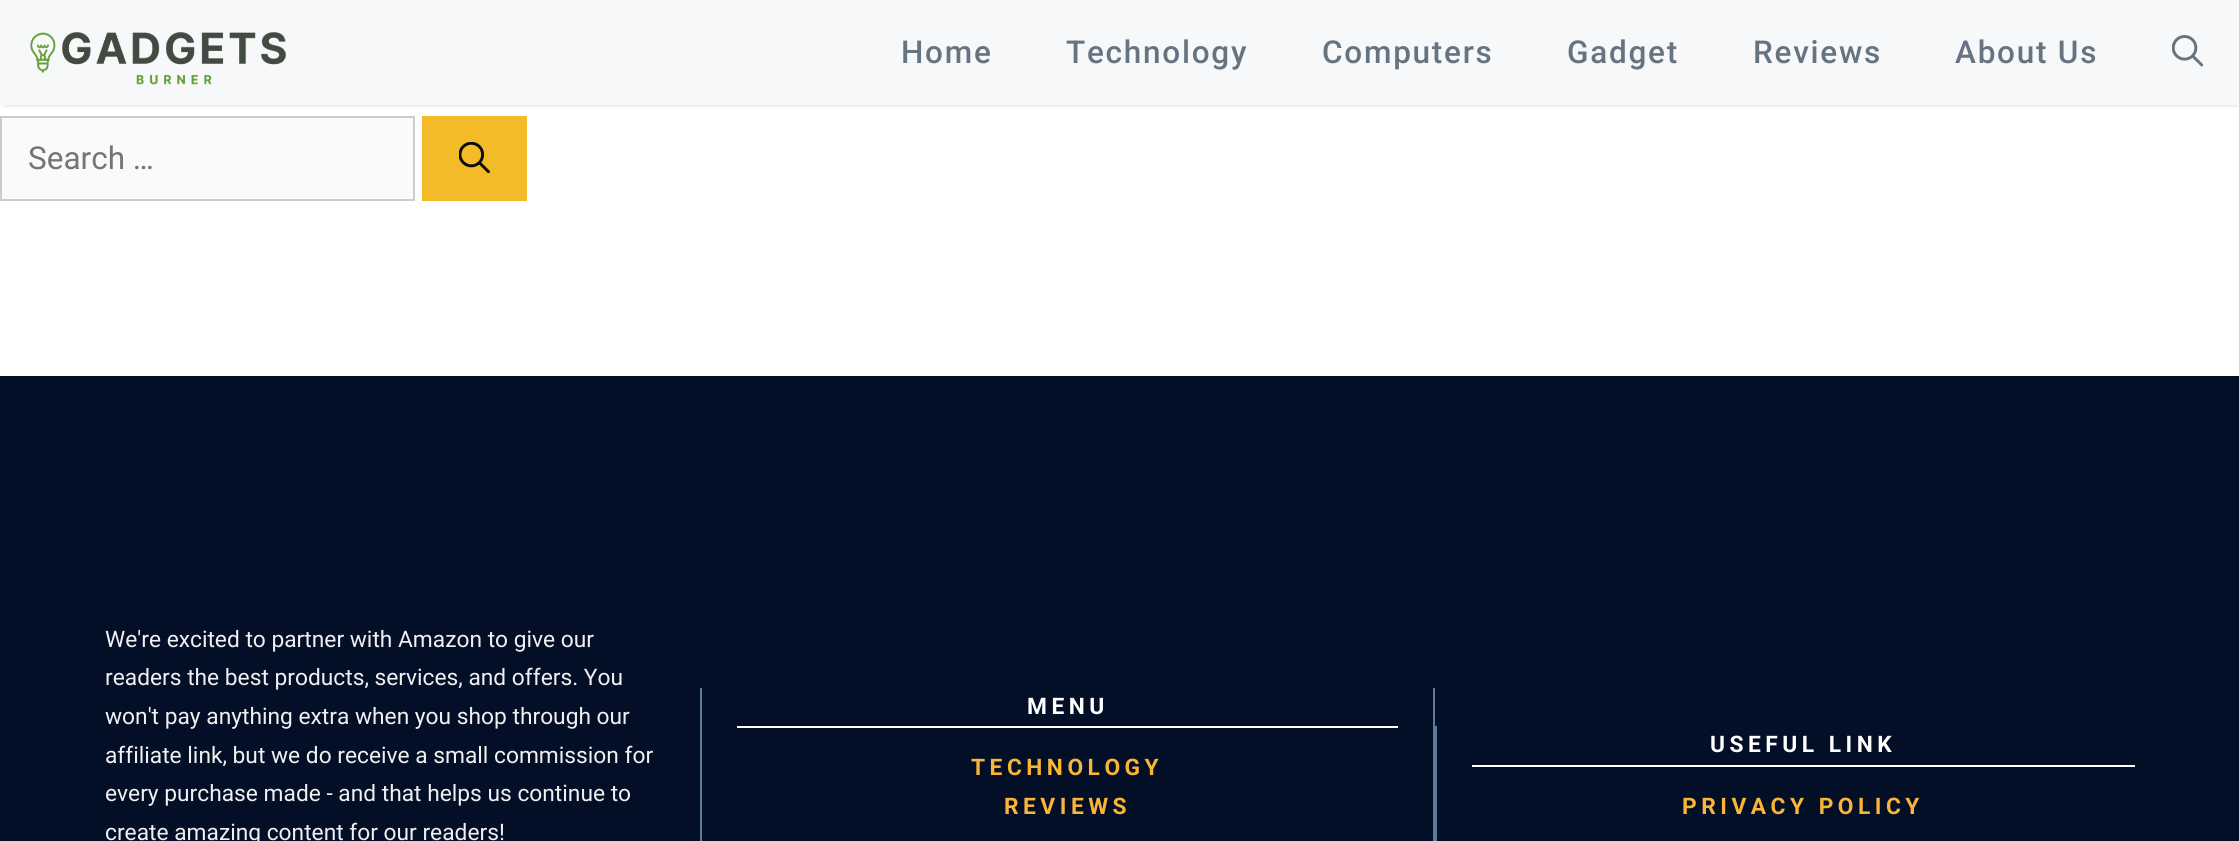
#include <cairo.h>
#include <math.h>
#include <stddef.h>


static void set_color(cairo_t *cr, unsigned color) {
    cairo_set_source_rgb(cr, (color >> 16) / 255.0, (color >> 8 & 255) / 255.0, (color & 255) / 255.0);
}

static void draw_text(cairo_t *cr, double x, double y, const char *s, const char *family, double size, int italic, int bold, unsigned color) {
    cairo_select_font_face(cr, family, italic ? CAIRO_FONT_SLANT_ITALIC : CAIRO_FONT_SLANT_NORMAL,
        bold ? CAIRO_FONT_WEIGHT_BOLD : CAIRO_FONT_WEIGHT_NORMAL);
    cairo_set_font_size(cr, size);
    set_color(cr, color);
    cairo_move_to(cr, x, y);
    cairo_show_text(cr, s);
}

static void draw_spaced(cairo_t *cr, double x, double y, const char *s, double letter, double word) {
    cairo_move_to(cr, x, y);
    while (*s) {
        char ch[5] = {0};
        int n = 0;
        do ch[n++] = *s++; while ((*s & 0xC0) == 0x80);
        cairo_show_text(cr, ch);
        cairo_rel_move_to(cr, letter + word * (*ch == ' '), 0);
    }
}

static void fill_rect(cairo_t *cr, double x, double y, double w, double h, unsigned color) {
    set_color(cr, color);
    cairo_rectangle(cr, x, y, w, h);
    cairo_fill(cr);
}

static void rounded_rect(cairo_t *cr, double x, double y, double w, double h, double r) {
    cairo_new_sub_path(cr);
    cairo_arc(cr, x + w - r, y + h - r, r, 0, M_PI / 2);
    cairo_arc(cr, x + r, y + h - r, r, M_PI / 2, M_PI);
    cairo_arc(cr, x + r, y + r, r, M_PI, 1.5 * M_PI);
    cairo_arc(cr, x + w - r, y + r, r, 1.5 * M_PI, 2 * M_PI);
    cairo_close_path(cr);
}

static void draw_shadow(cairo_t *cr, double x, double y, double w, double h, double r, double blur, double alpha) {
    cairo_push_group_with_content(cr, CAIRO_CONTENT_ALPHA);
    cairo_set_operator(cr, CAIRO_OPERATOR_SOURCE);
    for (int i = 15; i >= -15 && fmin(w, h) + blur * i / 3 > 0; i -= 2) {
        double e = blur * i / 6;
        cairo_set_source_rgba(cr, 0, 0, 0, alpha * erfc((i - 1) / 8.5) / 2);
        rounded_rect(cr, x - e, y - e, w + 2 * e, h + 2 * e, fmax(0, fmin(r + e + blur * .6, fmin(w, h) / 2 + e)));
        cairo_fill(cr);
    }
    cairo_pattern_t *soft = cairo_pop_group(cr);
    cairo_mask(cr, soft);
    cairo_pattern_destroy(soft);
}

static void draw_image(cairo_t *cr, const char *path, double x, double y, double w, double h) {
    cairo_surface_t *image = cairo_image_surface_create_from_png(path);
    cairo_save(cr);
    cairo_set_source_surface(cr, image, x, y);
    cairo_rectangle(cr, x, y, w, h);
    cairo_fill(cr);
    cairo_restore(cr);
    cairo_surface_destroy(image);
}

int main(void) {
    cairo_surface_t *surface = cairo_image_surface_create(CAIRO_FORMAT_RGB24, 2239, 841);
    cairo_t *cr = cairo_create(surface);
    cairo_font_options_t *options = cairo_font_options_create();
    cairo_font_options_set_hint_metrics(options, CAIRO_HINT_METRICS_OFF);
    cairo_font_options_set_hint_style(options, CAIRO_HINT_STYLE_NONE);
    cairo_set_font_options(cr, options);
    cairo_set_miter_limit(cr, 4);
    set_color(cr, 0xFFFFFF);
    cairo_paint(cr);
    set_color(cr, 0x000000);
    draw_shadow(cr, 4, 7, 2233, 98, 0, 2, 0.2);
    fill_rect(cr, 0, 0, 2239, 105, 0xF7F8F9);
    draw_image(cr, "assets/img1.png", 30, 32, 257, 53);
    cairo_select_font_face(cr, "Roboto Medium", CAIRO_FONT_SLANT_NORMAL, CAIRO_FONT_WEIGHT_NORMAL);
    cairo_set_font_size(cr, 31.5);
    set_color(cr, 0x667482);
    draw_spaced(cr, 901, 63, "Home", 1.75, 0);
    draw_spaced(cr, 1066, 63, "Technology", 1.75, 0);
    draw_spaced(cr, 1322, 63, "Computers", 1.75, 0);
    draw_spaced(cr, 1567, 63, "Gadget", 1.75, 0);
    draw_spaced(cr, 1753, 63, "Reviews", 1.75, 0);
    draw_spaced(cr, 1955, 63, "About Us", 1.75, 0);
    draw_image(cr, "assets/img2.png", 2172, 35, 31, 32);
    set_color(cr, 0xFAFAFA);
    cairo_rectangle(cr, 1, 117, 413, 83);
    cairo_fill_preserve(cr);
    set_color(cr, 0xCCCCCC);
    cairo_stroke(cr);
    draw_text(cr, 28, 169, "Search …", "Roboto", 31.5, 0, 0, 0x757575);
    fill_rect(cr, 422, 116, 105, 85, 0xF4BB29);
    draw_image(cr, "assets/img3.png", 459, 142, 31, 31);
    fill_rect(cr, 0, 376, 2239, 465, 0x030E27);
    draw_text(cr, 105, 647, "We're excited to partner with Amazon to give our", "Roboto", 22.75, 0, 0, 0xF0F0F0);
    draw_text(cr, 105, 685, "readers the best products, services, and offers. You", "Roboto", 22.75, 0, 0, 0xF0F0F0);
    draw_text(cr, 105, 724, "won't pay anything extra when you shop through our", "Roboto", 22.75, 0, 0, 0xF0F0F0);
    draw_text(cr, 105, 763, "affiliate link, but we do receive a small commission for", "Roboto", 22.75, 0, 0, 0xF0F0F0);
    draw_text(cr, 105, 801, "every purchase made - and that helps us continue to", "Roboto", 22.75, 0, 0, 0xF0F0F0);
    draw_text(cr, 105, 840, "create amazing content for our readers!", "Roboto", 22.75, 0, 0, 0xF0F0F0);
    fill_rect(cr, 1433, 688, 2, 153, 0x5C7A99);
    fill_rect(cr, 700, 688, 2, 153, 0x5C7A99);
    fill_rect(cr, 737, 726, 661, 2, 0xFFFFFF);
    cairo_select_font_face(cr, "Roboto", CAIRO_FONT_SLANT_NORMAL, CAIRO_FONT_WEIGHT_BOLD);
    draw_spaced(cr, 1027, 714, "MENU", 4.5, 0);
    set_color(cr, 0xFAB536);
    draw_spaced(cr, 971, 775, "TECHNOLOGY", 4.5, 0);
    draw_spaced(cr, 1004, 814, "REVIEWS", 4.5, 0);
    fill_rect(cr, 1435, 726, 2, 115, 0x5C7A99);
    fill_rect(cr, 1472, 765, 663, 2, 0xFFFFFF);
    draw_spaced(cr, 1710, 752, "USEFUL LINK", 4.5, 0);
    set_color(cr, 0xFAB536);
    draw_spaced(cr, 1682, 814, "PRIVACY POLICY", 4.5, 0);
    cairo_surface_write_to_png(surface, "output.png");
    cairo_font_options_destroy(options);
    cairo_destroy(cr);
    cairo_surface_destroy(surface);
    return 0;
}
